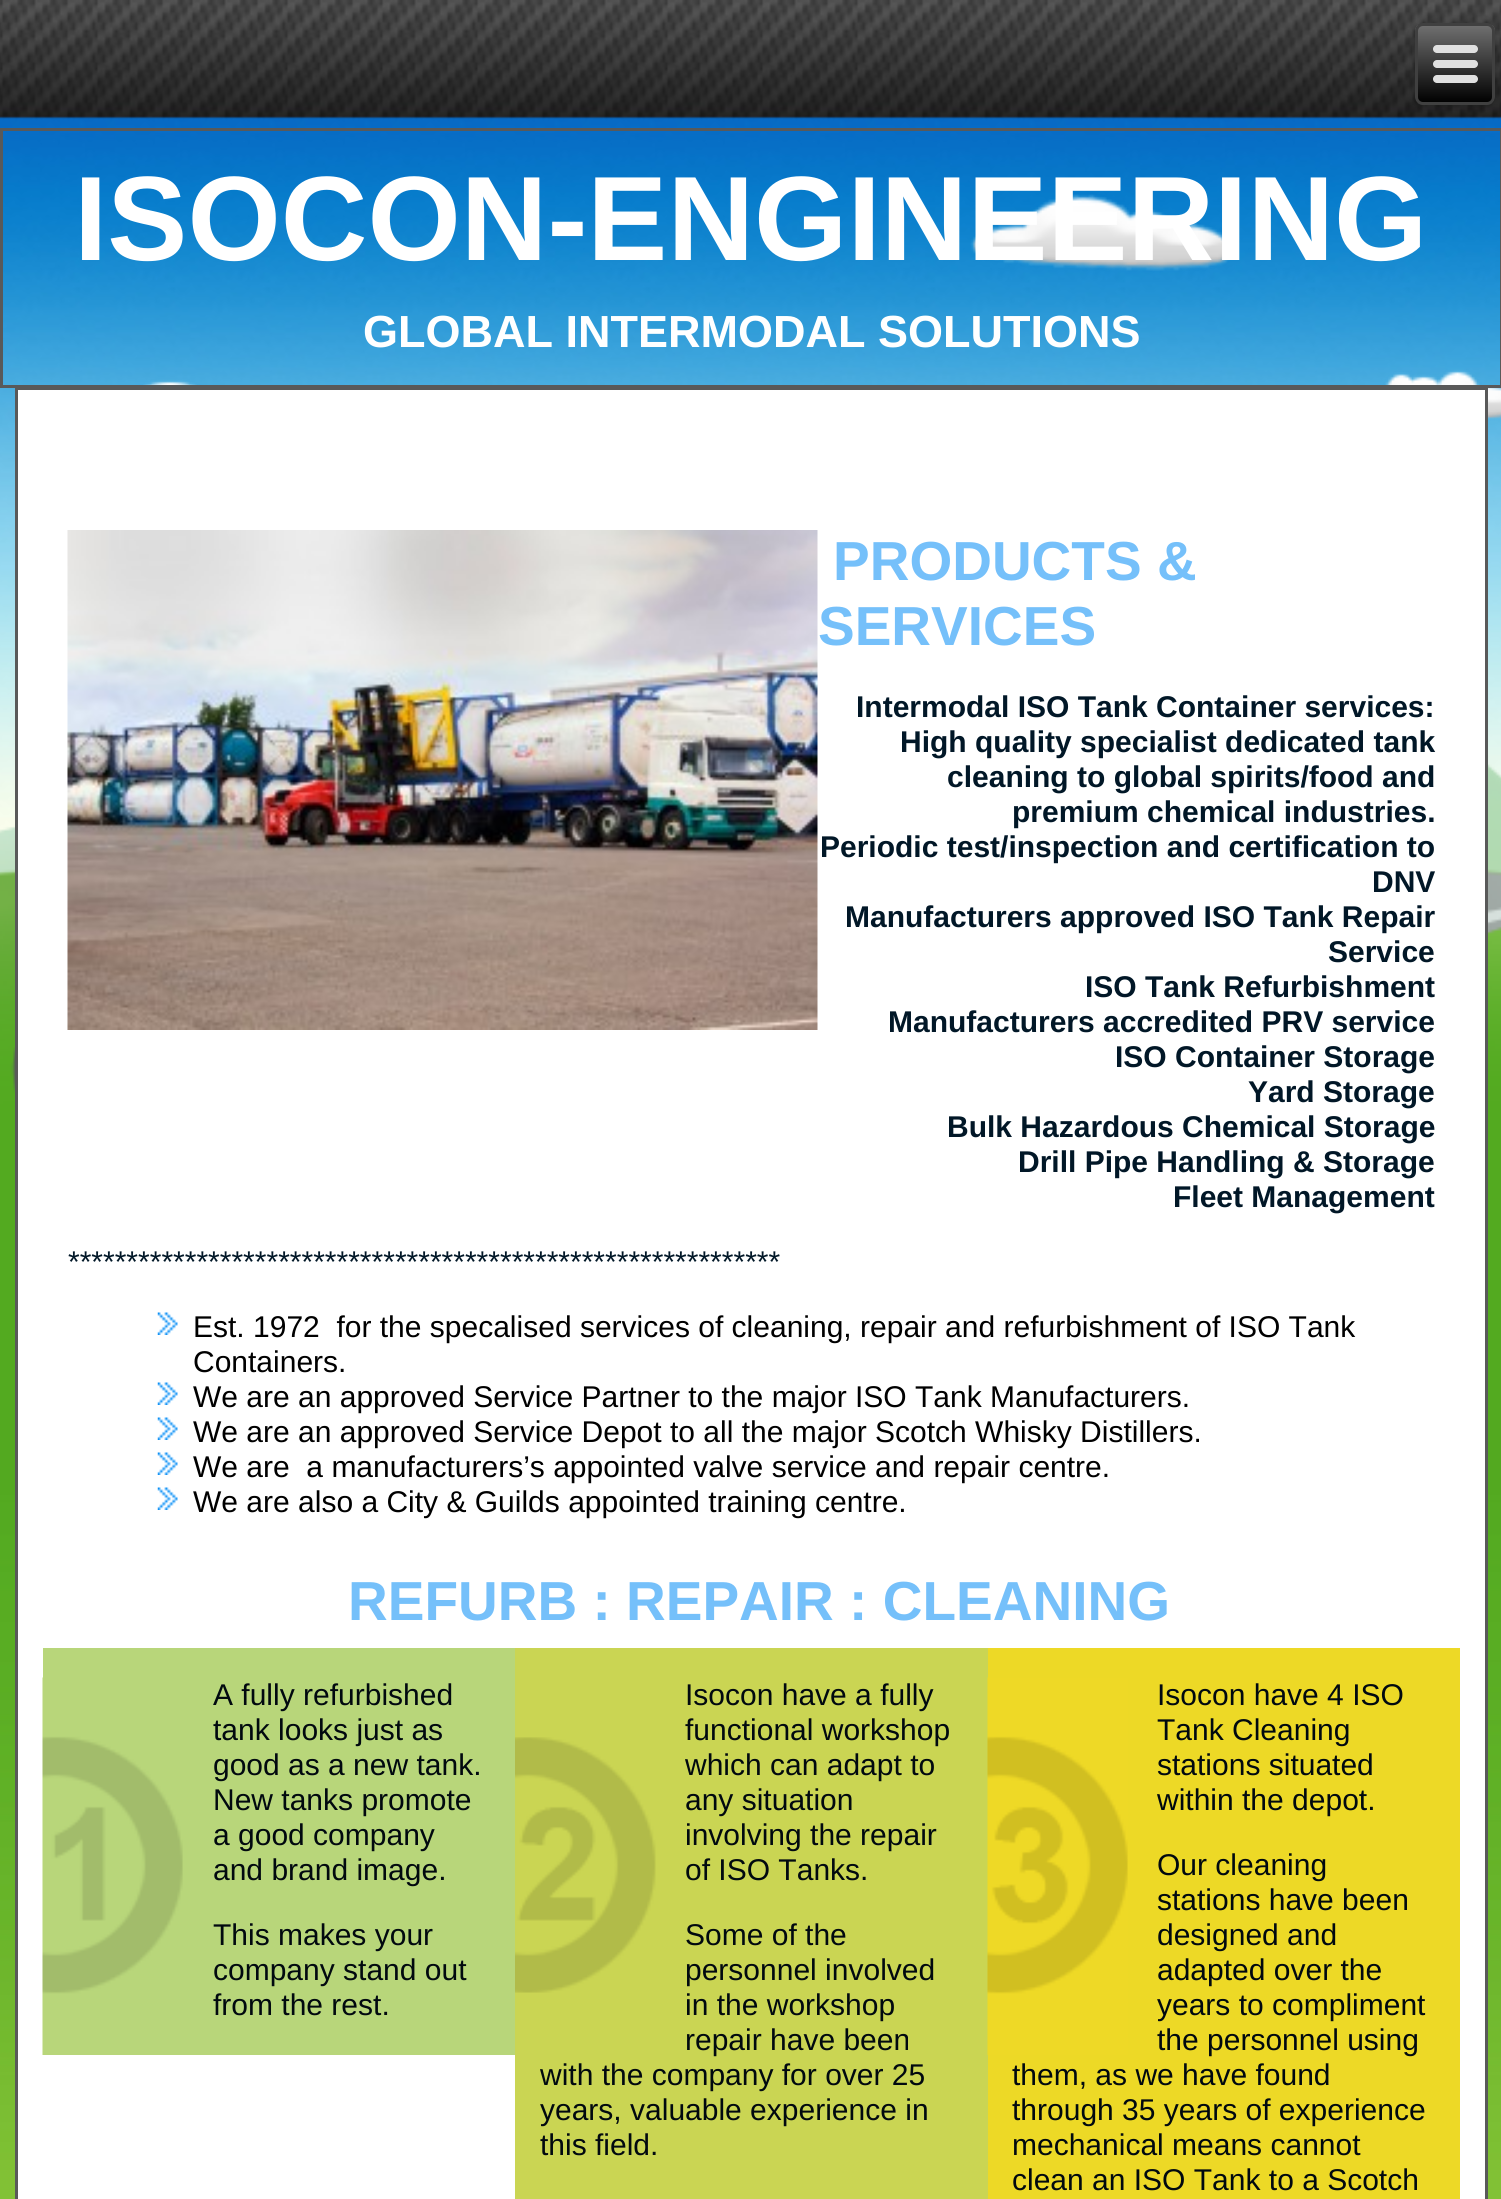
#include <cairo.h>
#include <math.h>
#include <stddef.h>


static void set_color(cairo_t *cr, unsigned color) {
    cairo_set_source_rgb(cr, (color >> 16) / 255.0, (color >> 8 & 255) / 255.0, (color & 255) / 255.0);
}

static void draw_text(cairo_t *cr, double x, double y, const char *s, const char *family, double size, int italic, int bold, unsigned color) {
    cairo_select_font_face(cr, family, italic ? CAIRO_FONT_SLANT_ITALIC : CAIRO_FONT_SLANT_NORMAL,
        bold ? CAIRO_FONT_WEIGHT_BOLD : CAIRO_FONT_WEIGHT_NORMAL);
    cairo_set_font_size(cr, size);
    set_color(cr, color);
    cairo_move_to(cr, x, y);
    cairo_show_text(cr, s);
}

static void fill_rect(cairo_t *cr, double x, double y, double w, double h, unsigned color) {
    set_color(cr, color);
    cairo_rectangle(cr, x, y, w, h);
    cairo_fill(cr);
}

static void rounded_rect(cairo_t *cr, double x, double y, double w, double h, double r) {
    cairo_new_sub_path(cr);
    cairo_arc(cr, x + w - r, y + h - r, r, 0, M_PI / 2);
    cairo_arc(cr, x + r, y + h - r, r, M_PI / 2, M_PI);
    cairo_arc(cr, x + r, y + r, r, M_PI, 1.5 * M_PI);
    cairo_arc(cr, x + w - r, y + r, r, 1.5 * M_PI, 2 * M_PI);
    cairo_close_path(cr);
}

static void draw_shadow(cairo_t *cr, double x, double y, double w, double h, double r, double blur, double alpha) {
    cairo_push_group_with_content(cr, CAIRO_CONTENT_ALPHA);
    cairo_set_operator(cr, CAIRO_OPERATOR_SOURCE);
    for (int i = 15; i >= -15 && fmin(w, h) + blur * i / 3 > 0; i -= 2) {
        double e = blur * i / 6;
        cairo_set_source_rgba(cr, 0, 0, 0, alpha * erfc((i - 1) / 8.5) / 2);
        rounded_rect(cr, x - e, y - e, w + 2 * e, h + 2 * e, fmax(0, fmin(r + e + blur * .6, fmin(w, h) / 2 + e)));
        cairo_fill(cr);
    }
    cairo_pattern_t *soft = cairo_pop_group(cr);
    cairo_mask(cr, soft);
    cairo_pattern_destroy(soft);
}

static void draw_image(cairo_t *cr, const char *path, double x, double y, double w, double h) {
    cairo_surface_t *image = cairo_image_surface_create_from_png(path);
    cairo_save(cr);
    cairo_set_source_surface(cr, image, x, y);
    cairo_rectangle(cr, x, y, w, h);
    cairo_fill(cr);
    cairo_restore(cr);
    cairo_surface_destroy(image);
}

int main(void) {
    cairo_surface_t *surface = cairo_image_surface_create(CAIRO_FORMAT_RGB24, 1501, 2199);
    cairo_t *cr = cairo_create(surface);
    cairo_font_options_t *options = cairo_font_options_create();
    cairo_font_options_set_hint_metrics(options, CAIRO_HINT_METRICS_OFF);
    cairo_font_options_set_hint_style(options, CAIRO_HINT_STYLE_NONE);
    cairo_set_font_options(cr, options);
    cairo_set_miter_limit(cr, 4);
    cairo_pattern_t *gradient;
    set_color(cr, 0xFFFFFF);
    cairo_paint(cr);
    draw_image(cr, "assets/img1.png", 0, 0, 1501, 2199);
    set_color(cr, 0x000000);
    draw_shadow(cr, 1415, 23, 80, 82, 8, 4, 0.2);
    cairo_save(cr);
    rounded_rect(cr, 1415, 23, 80, 82, 8);
    cairo_clip(cr);
    gradient = cairo_pattern_create_linear(1455, 25, 1455, 103);
    cairo_pattern_add_color_stop_rgba(gradient, 0, 0.439, 0.439, 0.439, 1);
    cairo_pattern_add_color_stop_rgba(gradient, 1, 0, 0, 0, 1);
    cairo_set_source(cr, gradient);
    cairo_pattern_destroy(gradient);
    cairo_rectangle(cr, 1415, 25, 80, 78);
    cairo_fill(cr);
    cairo_restore(cr);
    rounded_rect(cr, 1416.5, 24.5, 77, 79, 6.5);
    set_color(cr, 0x404040);
    cairo_set_line_width(cr, 3);
    cairo_stroke(cr);
    set_color(cr, 0xE0E0E0);
    rounded_rect(cr, 1433, 45, 45, 8, 4);
    cairo_fill(cr);
    rounded_rect(cr, 1433, 60, 45, 8, 4);
    cairo_fill(cr);
    rounded_rect(cr, 1433, 75, 45, 8, 4);
    cairo_fill(cr);
    cairo_rectangle(cr, 1.5, 129.5, 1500, 257);
    set_color(cr, 0x595959);
    cairo_stroke(cr);
    draw_text(cr, 74, 260, "ISOCON-ENGINEERING", "Liberation Sans", 120, 0, 1, 0xFFFFFF);
    draw_text(cr, 363, 347, "GLOBAL INTERMODAL SOLUTIONS", "Liberation Sans", 45, 0, 1, 0xFFFFFF);
    cairo_rectangle(cr, 16.5, 389.5, 1470, 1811);
    set_color(cr, 0x595959);
    cairo_stroke(cr);
    fill_rect(cr, 18, 390, 1467, 1809, 0xFFFFFF);
    draw_image(cr, "assets/img2.png", 67, 530, 751, 500);
    draw_text(cr, 833, 580, "PRODUCTS &", "Liberation Sans", 55, 0, 1, 0x75C0FA);
    draw_text(cr, 818, 645, "SERVICES", "Liberation Sans", 55, 0, 1, 0x75C0FA);
    draw_text(cr, 856, 717, "Intermodal ISO Tank Container services:", "Liberation Sans", 30, 0, 1, 0x011727);
    draw_text(cr, 900, 752, "High quality specialist dedicated tank", "Liberation Sans", 30, 0, 1, 0x011727);
    draw_text(cr, 947, 787, "cleaning to global spirits/food and", "Liberation Sans", 30, 0, 1, 0x011727);
    draw_text(cr, 1012, 822, "premium chemical industries.", "Liberation Sans", 30, 0, 1, 0x011727);
    draw_text(cr, 820, 857, "Periodic test/inspection and certification to", "Liberation Sans", 30, 0, 1, 0x011727);
    draw_text(cr, 1372, 892, "DNV", "Liberation Sans", 30, 0, 1, 0x011727);
    draw_text(cr, 845, 927, "Manufacturers approved ISO Tank Repair", "Liberation Sans", 30, 0, 1, 0x011727);
    draw_text(cr, 1328, 962, "Service", "Liberation Sans", 30, 0, 1, 0x011727);
    draw_text(cr, 1085, 997, "ISO Tank Refurbishment", "Liberation Sans", 30, 0, 1, 0x011727);
    draw_text(cr, 888, 1032, "Manufacturers accredited PRV service", "Liberation Sans", 30, 0, 1, 0x011727);
    draw_text(cr, 1115, 1067, "ISO Container Storage", "Liberation Sans", 30, 0, 1, 0x011727);
    draw_text(cr, 1248, 1102, "Yard Storage", "Liberation Sans", 30, 0, 1, 0x011727);
    draw_text(cr, 947, 1137, "Bulk Hazardous Chemical Storage", "Liberation Sans", 30, 0, 1, 0x011727);
    draw_text(cr, 1018, 1172, "Drill Pipe Handling & Storage", "Liberation Sans", 30, 0, 1, 0x011727);
    draw_text(cr, 1173, 1207, "Fleet Management", "Liberation Sans", 30, 0, 1, 0x011727);
    draw_text(cr, 68, 1272, "*************************************************************", "Liberation Sans", 30, 0, 0, 0x011727);
    draw_image(cr, "assets/img3.png", 157, 1312, 21, 23);
    draw_text(cr, 193, 1337, "Est. 1972  for the specalised services of cleaning, repair and refurbishment of ISO Tank", "Liberation Sans", 30, 0, 0, 0x000000);
    draw_text(cr, 193, 1372, "Containers.", "Liberation Sans", 30, 0, 0, 0x000000);
    draw_image(cr, "assets/img3.png", 157, 1382, 21, 23);
    draw_text(cr, 193, 1407, "We are an approved Service Partner to the major ISO Tank Manufacturers.", "Liberation Sans", 30, 0, 0, 0x000000);
    draw_image(cr, "assets/img3.png", 157, 1417, 21, 23);
    draw_text(cr, 193, 1442, "We are an approved Service Depot to all the major Scotch Whisky Distillers.", "Liberation Sans", 30, 0, 0, 0x000000);
    draw_image(cr, "assets/img3.png", 157, 1452, 21, 23);
    draw_text(cr, 193, 1477, "We are  a manufacturers’s appointed valve service and repair centre.", "Liberation Sans", 30, 0, 0, 0x000000);
    draw_image(cr, "assets/img3.png", 157, 1487, 21, 23);
    draw_text(cr, 193, 1512, "We are also a City & Guilds appointed training centre.", "Liberation Sans", 30, 0, 0, 0x000000);
    draw_text(cr, 348, 1620, "REFURB : REPAIR : CLEANING", "Liberation Sans", 55, 0, 1, 0x75C0FA);
    fill_rect(cr, 43, 1648, 472, 407, 0xB8D67A);
    draw_image(cr, "assets/img4.png", 42, 1677, 141, 378);
    draw_text(cr, 213, 1705, "A fully refurbished", "Liberation Sans", 30, 0, 0, 0x01090F);
    draw_text(cr, 213, 1740, "tank looks just as", "Liberation Sans", 30, 0, 0, 0x01090F);
    draw_text(cr, 213, 1775, "good as a new tank.", "Liberation Sans", 30, 0, 0, 0x01090F);
    draw_text(cr, 213, 1810, "New tanks promote", "Liberation Sans", 30, 0, 0, 0x01090F);
    draw_text(cr, 213, 1845, "a good company", "Liberation Sans", 30, 0, 0, 0x01090F);
    draw_text(cr, 213, 1880, "and brand image.", "Liberation Sans", 30, 0, 0, 0x01090F);
    draw_text(cr, 213, 1945, "This makes your", "Liberation Sans", 30, 0, 0, 0x01090F);
    draw_text(cr, 213, 1980, "company stand out", "Liberation Sans", 30, 0, 0, 0x01090F);
    draw_text(cr, 213, 2015, "from the rest.", "Liberation Sans", 30, 0, 0, 0x01090F);
    fill_rect(cr, 515, 1648, 473, 551, 0xCAD553);
    draw_image(cr, "assets/img5.png", 515, 1737, 141, 256);
    draw_text(cr, 685, 1705, "Isocon have a fully", "Liberation Sans", 30, 0, 0, 0x01090F);
    draw_text(cr, 685, 1740, "functional workshop", "Liberation Sans", 30, 0, 0, 0x01090F);
    draw_text(cr, 685, 1775, "which can adapt to", "Liberation Sans", 30, 0, 0, 0x01090F);
    draw_text(cr, 685, 1810, "any situation", "Liberation Sans", 30, 0, 0, 0x01090F);
    draw_text(cr, 685, 1845, "involving the repair", "Liberation Sans", 30, 0, 0, 0x01090F);
    draw_text(cr, 685, 1880, "of ISO Tanks.", "Liberation Sans", 30, 0, 0, 0x01090F);
    draw_text(cr, 685, 1945, "Some of the", "Liberation Sans", 30, 0, 0, 0x01090F);
    draw_text(cr, 685, 1980, "personnel involved", "Liberation Sans", 30, 0, 0, 0x01090F);
    draw_text(cr, 685, 2015, "in the workshop", "Liberation Sans", 30, 0, 0, 0x01090F);
    draw_text(cr, 685, 2050, "repair have been", "Liberation Sans", 30, 0, 0, 0x01090F);
    draw_text(cr, 540, 2085, "with the company for over 25", "Liberation Sans", 30, 0, 0, 0x01090F);
    draw_text(cr, 540, 2120, "years, valuable experience in", "Liberation Sans", 30, 0, 0, 0x01090F);
    draw_text(cr, 540, 2155, "this field.", "Liberation Sans", 30, 0, 0, 0x01090F);
    fill_rect(cr, 988, 1648, 472, 551, 0xEDD926);
    draw_image(cr, "assets/img6.png", 987, 1677, 141, 378);
    draw_text(cr, 1157, 1705, "Isocon have 4 ISO", "Liberation Sans", 30, 0, 0, 0x01090F);
    draw_text(cr, 1157, 1740, "Tank Cleaning", "Liberation Sans", 30, 0, 0, 0x01090F);
    draw_text(cr, 1157, 1775, "stations situated", "Liberation Sans", 30, 0, 0, 0x01090F);
    draw_text(cr, 1157, 1810, "within the depot.", "Liberation Sans", 30, 0, 0, 0x01090F);
    draw_text(cr, 1157, 1875, "Our cleaning", "Liberation Sans", 30, 0, 0, 0x01090F);
    draw_text(cr, 1157, 1910, "stations have been", "Liberation Sans", 30, 0, 0, 0x01090F);
    draw_text(cr, 1157, 1945, "designed and", "Liberation Sans", 30, 0, 0, 0x01090F);
    draw_text(cr, 1157, 1980, "adapted over the", "Liberation Sans", 30, 0, 0, 0x01090F);
    draw_text(cr, 1157, 2015, "years to compliment", "Liberation Sans", 30, 0, 0, 0x01090F);
    draw_text(cr, 1157, 2050, "the personnel using", "Liberation Sans", 30, 0, 0, 0x01090F);
    draw_text(cr, 1012, 2085, "them, as we have found", "Liberation Sans", 30, 0, 0, 0x01090F);
    draw_text(cr, 1012, 2120, "through 35 years of experience", "Liberation Sans", 30, 0, 0, 0x01090F);
    draw_text(cr, 1012, 2155, "mechanical means cannot", "Liberation Sans", 30, 0, 0, 0x01090F);
    draw_text(cr, 1012, 2190, "clean an ISO Tank to a Scotch", "Liberation Sans", 30, 0, 0, 0x01090F);
    cairo_surface_write_to_png(surface, "output.png");
    cairo_font_options_destroy(options);
    cairo_destroy(cr);
    cairo_surface_destroy(surface);
    return 0;
}
